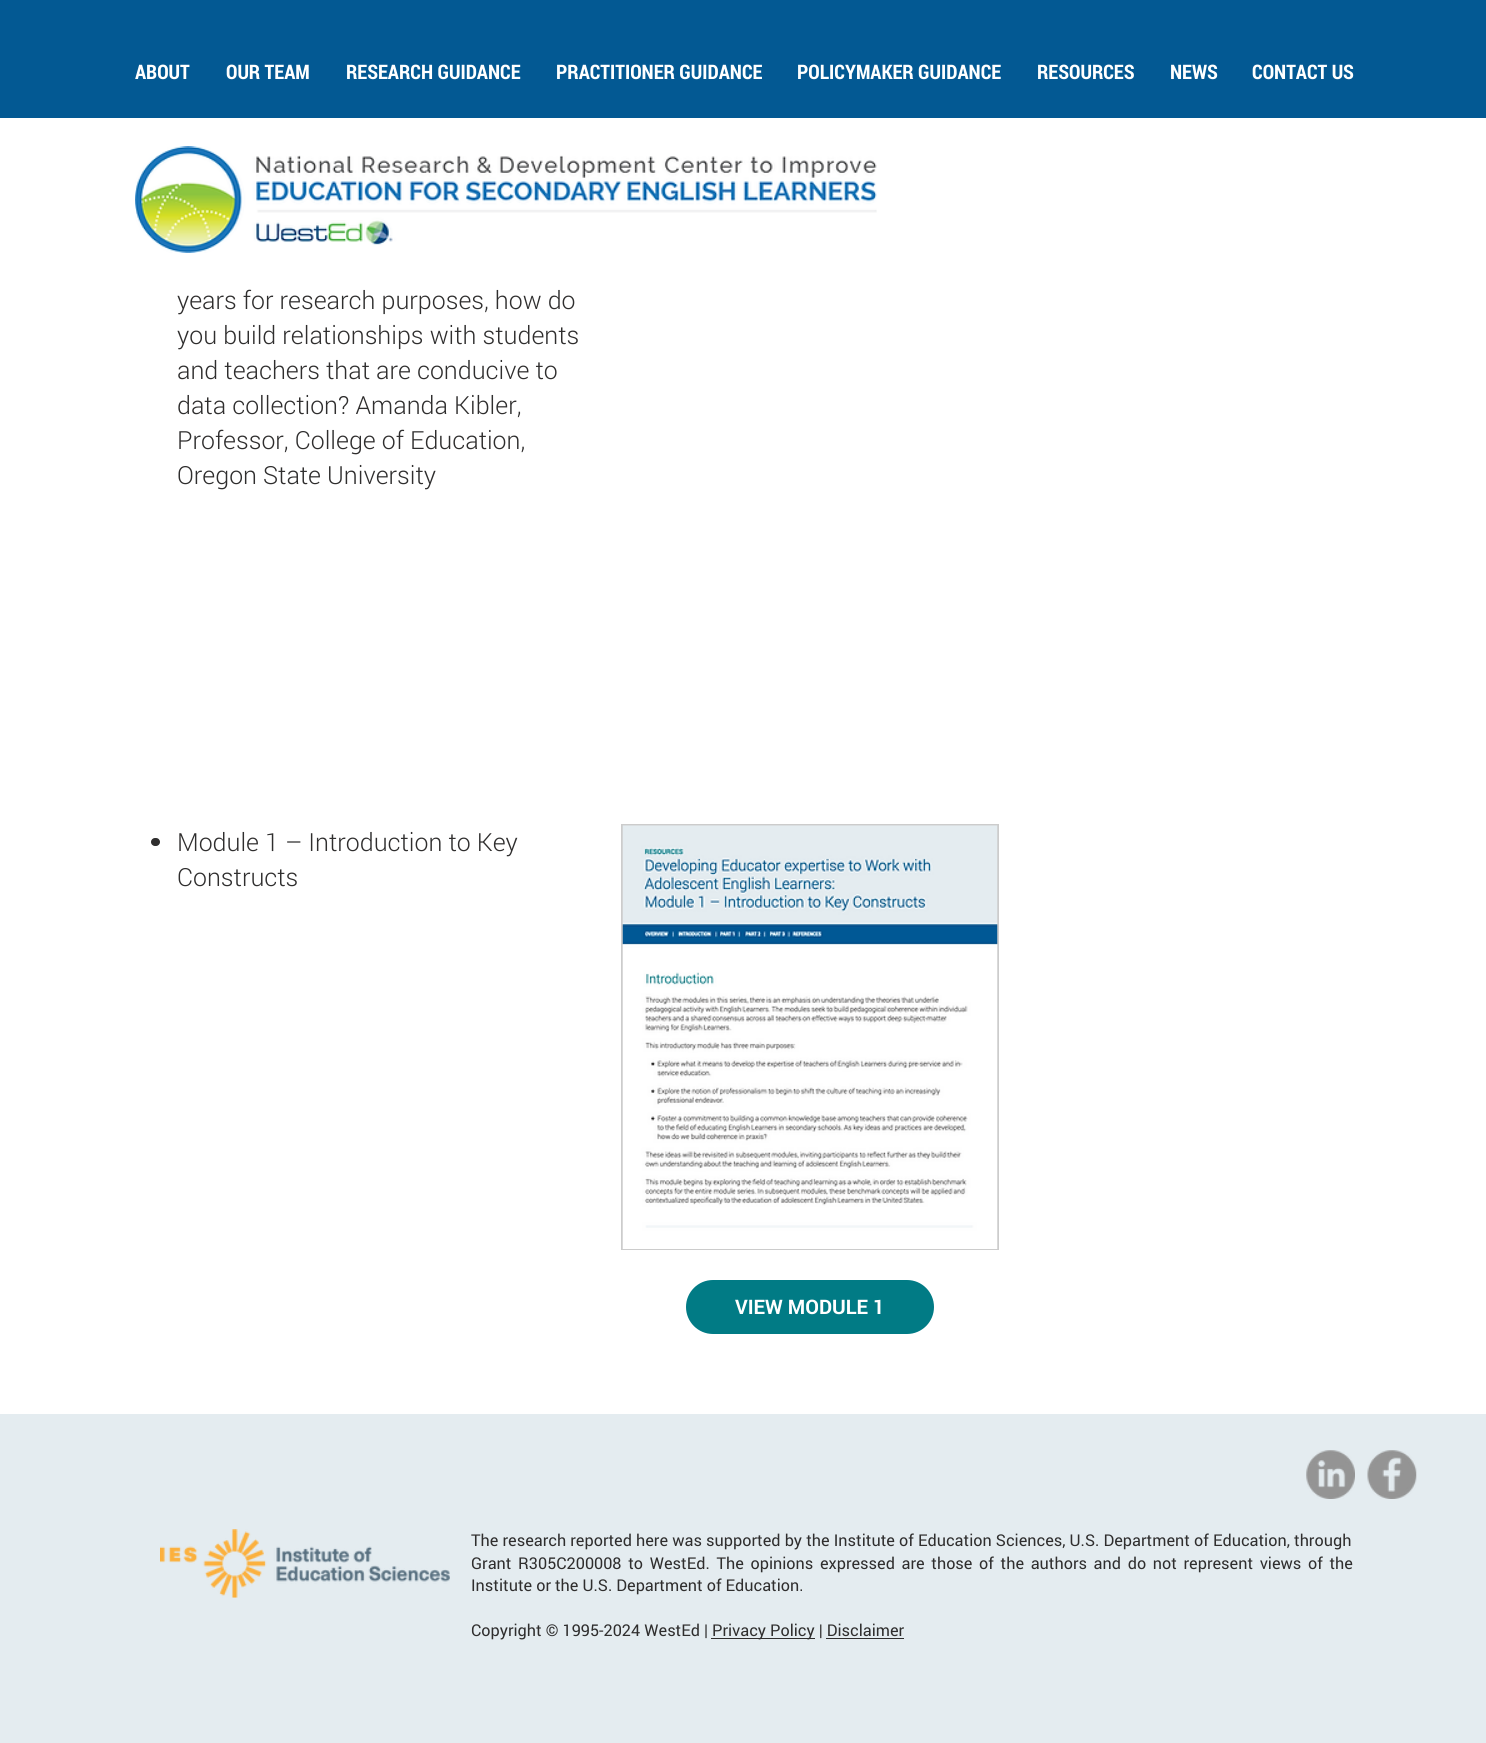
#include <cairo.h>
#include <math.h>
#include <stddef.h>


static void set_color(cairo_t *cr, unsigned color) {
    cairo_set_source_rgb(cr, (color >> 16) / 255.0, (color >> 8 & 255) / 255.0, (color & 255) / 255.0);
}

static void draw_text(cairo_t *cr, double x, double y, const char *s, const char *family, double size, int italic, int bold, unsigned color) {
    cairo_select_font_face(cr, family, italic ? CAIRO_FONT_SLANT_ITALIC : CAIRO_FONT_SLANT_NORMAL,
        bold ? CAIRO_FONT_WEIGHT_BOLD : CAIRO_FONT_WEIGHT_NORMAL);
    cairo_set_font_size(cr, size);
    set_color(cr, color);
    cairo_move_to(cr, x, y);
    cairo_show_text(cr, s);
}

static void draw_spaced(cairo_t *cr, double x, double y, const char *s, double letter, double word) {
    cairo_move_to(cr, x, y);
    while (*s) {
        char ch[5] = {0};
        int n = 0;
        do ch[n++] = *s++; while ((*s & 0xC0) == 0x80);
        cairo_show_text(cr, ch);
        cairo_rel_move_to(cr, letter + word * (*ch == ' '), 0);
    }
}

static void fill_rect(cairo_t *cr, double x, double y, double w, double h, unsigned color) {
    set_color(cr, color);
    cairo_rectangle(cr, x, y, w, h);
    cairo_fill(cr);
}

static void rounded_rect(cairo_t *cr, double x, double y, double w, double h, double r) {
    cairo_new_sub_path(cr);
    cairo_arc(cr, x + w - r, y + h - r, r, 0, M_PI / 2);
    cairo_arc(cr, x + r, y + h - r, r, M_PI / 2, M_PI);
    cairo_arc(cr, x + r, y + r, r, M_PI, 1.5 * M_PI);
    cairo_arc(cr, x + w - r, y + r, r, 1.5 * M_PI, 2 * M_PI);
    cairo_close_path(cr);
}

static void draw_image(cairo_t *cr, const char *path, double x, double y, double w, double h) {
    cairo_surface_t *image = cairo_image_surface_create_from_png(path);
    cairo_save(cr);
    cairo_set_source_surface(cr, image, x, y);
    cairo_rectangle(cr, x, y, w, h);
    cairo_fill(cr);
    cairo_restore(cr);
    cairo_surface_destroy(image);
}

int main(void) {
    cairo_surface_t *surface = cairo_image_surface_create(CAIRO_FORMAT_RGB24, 1486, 1743);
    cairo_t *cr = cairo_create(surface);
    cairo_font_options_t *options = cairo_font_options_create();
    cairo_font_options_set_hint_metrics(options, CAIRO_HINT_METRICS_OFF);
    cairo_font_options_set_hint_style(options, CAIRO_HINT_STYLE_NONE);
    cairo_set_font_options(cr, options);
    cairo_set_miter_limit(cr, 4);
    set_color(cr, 0xFFFFFF);
    cairo_paint(cr);
    fill_rect(cr, 0, 0, 1486, 118, 0x035993);
    draw_text(cr, 135, 79, "ABOUT", "Roboto Condensed", 20, 0, 1, 0xFFFFFF);
    draw_text(cr, 226, 79, "OUR TEAM", "Roboto Condensed", 20, 0, 1, 0xFFFFFF);
    draw_text(cr, 346, 79, "RESEARCH GUIDANCE", "Roboto Condensed", 20, 0, 1, 0xFFFFFF);
    draw_text(cr, 556, 79, "PRACTITIONER GUIDANCE", "Roboto Condensed", 20, 0, 1, 0xFFFFFF);
    draw_text(cr, 797, 79, "POLICYMAKER GUIDANCE", "Roboto Condensed", 20, 0, 1, 0xFFFFFF);
    draw_text(cr, 1037, 79, "RESOURCES", "Roboto Condensed", 20, 0, 1, 0xFFFFFF);
    draw_text(cr, 1170, 79, "NEWS", "Roboto Condensed", 20, 0, 1, 0xFFFFFF);
    draw_text(cr, 1252, 79, "CONTACT US", "Roboto Condensed", 20, 0, 1, 0xFFFFFF);
    draw_image(cr, "assets/img1.png", 135, 146, 742, 107);
    draw_text(cr, 177, 309, "years for research purposes, how do", "Roboto Light", 25, 0, 0, 0x2F2E2E);
    draw_text(cr, 177, 344, "you build relationships with students", "Roboto Light", 25, 0, 0, 0x2F2E2E);
    draw_text(cr, 177, 379, "and teachers that are conducive to", "Roboto Light", 25, 0, 0, 0x2F2E2E);
    draw_text(cr, 177, 414, "data collection? Amanda Kibler,", "Roboto Light", 25, 0, 0, 0x2F2E2E);
    draw_text(cr, 177, 449, "Professor, College of Education,", "Roboto Light", 25, 0, 0, 0x2F2E2E);
    draw_text(cr, 177, 484, "Oregon State University", "Roboto Light", 25, 0, 0, 0x2F2E2E);
    rounded_rect(cr, 151, 838, 9, 8, 4);
    cairo_fill(cr);
    draw_text(cr, 177, 851, "Module 1 – Introduction to Key", "Roboto Light", 25, 0, 0, 0x2F2E2E);
    draw_text(cr, 177, 886, "Constructs", "Roboto Light", 25, 0, 0, 0x2F2E2E);
    fill_rect(cr, 621, 824, 378, 426, 0xCCCCCC);
    draw_image(cr, "assets/img2.png", 622, 825, 376, 424);
    set_color(cr, 0x017B85);
    rounded_rect(cr, 686, 1280, 248, 54, 27);
    cairo_fill(cr);
    draw_text(cr, 735, 1314, "VIEW MODULE 1", "Roboto", 20, 0, 1, 0xFFFFFF);
    fill_rect(cr, 0, 1414, 1486, 329, 0xE4ECF0);
    draw_image(cr, "assets/img3.png", 1306, 1450, 49, 49);
    draw_image(cr, "assets/img4.png", 1367, 1450, 50, 49);
    draw_image(cr, "assets/img5.png", 160, 1529, 290, 69);
    cairo_select_font_face(cr, "Roboto", CAIRO_FONT_SLANT_NORMAL, CAIRO_FONT_WEIGHT_NORMAL);
    cairo_set_font_size(cr, 16.25);
    set_color(cr, 0x2F2E2E);
    draw_spaced(cr, 471, 1546, "The research reported here was supported by the Institute of Education Sciences, U.S. Department of Education, through", 0, 0.1);
    draw_spaced(cr, 471, 1569, "Grant R305C200008 to WestEd. The opinions expressed are those of the authors and do not represent views of the", 0, 2.6);
    draw_text(cr, 471, 1591, "Institute or the U.S. Department of Education.", "Roboto", 16.25, 0, 0, 0x2F2E2E);
    draw_text(cr, 471, 1636, "Copyright © 1995-2024 WestEd |", "Roboto", 16.25, 0, 0, 0x2F2E2E);
    fill_rect(cr, 711, 1638, 104, 1, 0x2F2E2E);
    draw_text(cr, 712, 1636, "Privacy Policy | Disclaimer", "Roboto", 16.25, 0, 0, 0x2F2E2E);
    fill_rect(cr, 826, 1638, 78, 1, 0x2F2E2E);
    cairo_surface_write_to_png(surface, "output.png");
    cairo_font_options_destroy(options);
    cairo_destroy(cr);
    cairo_surface_destroy(surface);
    return 0;
}
